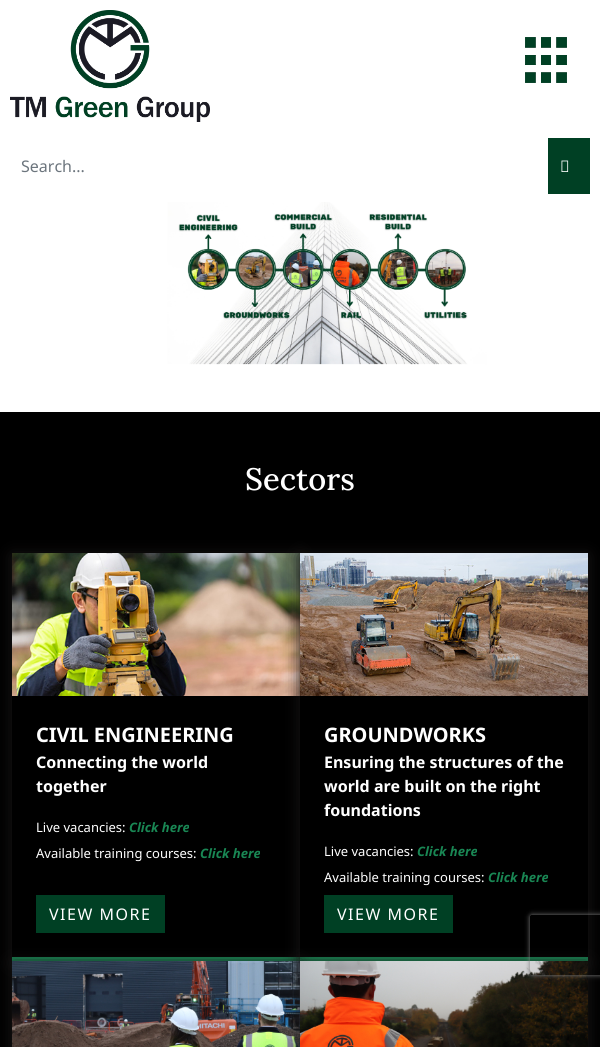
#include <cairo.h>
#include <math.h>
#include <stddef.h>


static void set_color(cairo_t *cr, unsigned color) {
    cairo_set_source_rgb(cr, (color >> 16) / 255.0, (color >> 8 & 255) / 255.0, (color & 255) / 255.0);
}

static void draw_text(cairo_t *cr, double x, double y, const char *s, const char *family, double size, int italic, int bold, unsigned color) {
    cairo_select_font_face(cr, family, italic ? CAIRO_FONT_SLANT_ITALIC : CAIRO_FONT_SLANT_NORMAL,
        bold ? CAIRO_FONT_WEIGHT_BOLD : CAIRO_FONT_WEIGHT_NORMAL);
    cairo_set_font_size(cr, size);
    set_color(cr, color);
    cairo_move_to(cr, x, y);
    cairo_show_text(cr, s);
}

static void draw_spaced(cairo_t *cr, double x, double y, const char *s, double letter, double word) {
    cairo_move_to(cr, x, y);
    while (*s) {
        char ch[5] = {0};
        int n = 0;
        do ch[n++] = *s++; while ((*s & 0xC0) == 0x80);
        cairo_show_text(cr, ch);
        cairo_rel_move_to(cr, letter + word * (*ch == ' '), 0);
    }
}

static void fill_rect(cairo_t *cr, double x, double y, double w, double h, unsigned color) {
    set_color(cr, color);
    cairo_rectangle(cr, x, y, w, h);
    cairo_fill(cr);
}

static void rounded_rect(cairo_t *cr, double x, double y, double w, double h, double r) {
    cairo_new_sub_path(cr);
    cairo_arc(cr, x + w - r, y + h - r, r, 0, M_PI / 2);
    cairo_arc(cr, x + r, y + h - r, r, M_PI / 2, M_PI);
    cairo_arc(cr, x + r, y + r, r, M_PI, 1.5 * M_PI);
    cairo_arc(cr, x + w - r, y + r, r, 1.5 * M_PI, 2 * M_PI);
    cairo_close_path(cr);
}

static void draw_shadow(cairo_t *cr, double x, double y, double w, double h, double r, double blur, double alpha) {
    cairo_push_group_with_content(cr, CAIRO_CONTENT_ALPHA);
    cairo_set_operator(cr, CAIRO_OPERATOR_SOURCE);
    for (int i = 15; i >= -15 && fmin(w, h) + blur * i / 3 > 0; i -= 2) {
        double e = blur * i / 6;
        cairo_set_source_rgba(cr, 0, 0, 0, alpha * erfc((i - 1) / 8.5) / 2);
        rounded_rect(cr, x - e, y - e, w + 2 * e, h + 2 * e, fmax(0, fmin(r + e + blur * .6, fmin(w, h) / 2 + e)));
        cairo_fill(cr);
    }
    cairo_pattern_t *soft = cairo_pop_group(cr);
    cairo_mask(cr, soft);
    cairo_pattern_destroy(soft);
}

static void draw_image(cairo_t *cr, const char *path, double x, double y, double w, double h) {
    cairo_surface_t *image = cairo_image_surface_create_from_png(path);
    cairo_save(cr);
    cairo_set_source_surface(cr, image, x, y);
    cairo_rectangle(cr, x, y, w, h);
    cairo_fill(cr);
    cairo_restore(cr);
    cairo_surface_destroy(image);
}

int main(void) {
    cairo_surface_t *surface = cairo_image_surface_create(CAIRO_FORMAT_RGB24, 600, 1047);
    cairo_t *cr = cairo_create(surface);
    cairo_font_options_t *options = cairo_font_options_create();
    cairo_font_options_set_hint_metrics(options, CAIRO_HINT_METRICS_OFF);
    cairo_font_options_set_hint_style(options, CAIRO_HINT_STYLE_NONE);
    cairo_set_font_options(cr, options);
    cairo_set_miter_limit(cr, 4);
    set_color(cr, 0x000000);
    cairo_paint(cr);
    fill_rect(cr, 0, 0, 600, 202, 0xFFFFFF);
    draw_image(cr, "assets/img1.png", 10, 10, 200, 112);
    draw_image(cr, "assets/img2.png", 525, 37, 42, 46);
    draw_text(cr, 21, 172, "Search...", "Noto Sans", 16, 0, 0, 0x6C757D);
    fill_rect(cr, 548, 138, 42, 56, 0x004024);
    draw_image(cr, "assets/img3.png", 561, 160, 8, 12);
    draw_image(cr, "assets/img4.png", 0, 202, 600, 210);
    draw_text(cr, 245, 490, "Sectors", "Lora Medium", 31, 0, 0, 0xFFFFFF);
    cairo_save(cr);
    cairo_set_fill_rule(cr, CAIRO_FILL_RULE_EVEN_ODD);
    cairo_new_path(cr);
    cairo_move_to(cr, 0, 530);
    cairo_line_to(cr, 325, 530);
    cairo_line_to(cr, 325, 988);
    cairo_line_to(cr, 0, 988);
    cairo_close_path(cr);
    cairo_move_to(cr, 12, 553);
    cairo_line_to(cr, 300, 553);
    cairo_line_to(cr, 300, 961);
    cairo_line_to(cr, 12, 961);
    cairo_close_path(cr);
    cairo_clip(cr);
    set_color(cr, 0x181616);
    draw_shadow(cr, 12, 555, 288, 408, 0, 8, 1);
    cairo_restore(cr);
    fill_rect(cr, 12, 957, 288, 4, 0x198754);
    draw_image(cr, "assets/img5.png", 12, 553, 288, 143);
    draw_text(cr, 36, 742, "CIVIL ENGINEERING", "Noto Sans", 20, 0, 1, 0xFFFFFF);
    draw_text(cr, 36, 768, "Connecting the world", "Noto Sans", 16, 0, 1, 0xFFFFFF);
    draw_text(cr, 36, 792, "together", "Noto Sans", 16, 0, 1, 0xFFFFFF);
    draw_text(cr, 36, 832, "Live vacancies:", "Noto Sans", 13, 0, 0, 0xFFFFFF);
    draw_text(cr, 129, 832, "Click here", "Noto Sans", 13, 1, 1, 0x198754);
    draw_text(cr, 36, 858, "Available training courses:", "Noto Sans", 13, 0, 0, 0xFFFFFF);
    draw_text(cr, 200, 858, "Click here", "Noto Sans", 13, 1, 1, 0x198754);
    fill_rect(cr, 36, 895, 129, 38, 0x004024);
    cairo_select_font_face(cr, "Noto Sans", CAIRO_FONT_SLANT_NORMAL, CAIRO_FONT_WEIGHT_NORMAL);
    cairo_set_font_size(cr, 16);
    set_color(cr, 0xFFFFFF);
    draw_spaced(cr, 49, 920, "VIEW MORE", 1.5, 0);
    set_color(cr, 0x181616);
    draw_shadow(cr, 300, 555, 288, 408, 0, 8, 1);
    fill_rect(cr, 300, 696, 288, 261, 0x000000);
    fill_rect(cr, 300, 957, 288, 4, 0x198754);
    draw_image(cr, "assets/img6.png", 300, 553, 288, 143);
    draw_text(cr, 324, 742, "GROUNDWORKS", "Noto Sans", 20, 0, 1, 0xFFFFFF);
    draw_text(cr, 324, 768, "Ensuring the structures of the", "Noto Sans", 16, 0, 1, 0xFFFFFF);
    draw_text(cr, 324, 792, "world are built on the right", "Noto Sans", 16, 0, 1, 0xFFFFFF);
    draw_text(cr, 324, 816, "foundations", "Noto Sans", 16, 0, 1, 0xFFFFFF);
    draw_text(cr, 324, 856, "Live vacancies:", "Noto Sans", 13, 0, 0, 0xFFFFFF);
    draw_text(cr, 417, 856, "Click here", "Noto Sans", 13, 1, 1, 0x198754);
    draw_text(cr, 324, 882, "Available training courses:", "Noto Sans", 13, 0, 0, 0xFFFFFF);
    draw_text(cr, 488, 882, "Click here", "Noto Sans", 13, 1, 1, 0x198754);
    fill_rect(cr, 324, 895, 129, 38, 0x004024);
    cairo_select_font_face(cr, "Noto Sans", CAIRO_FONT_SLANT_NORMAL, CAIRO_FONT_WEIGHT_NORMAL);
    cairo_set_font_size(cr, 16);
    set_color(cr, 0xFFFFFF);
    draw_spaced(cr, 337, 920, "VIEW MORE", 1.5, 0);
    set_color(cr, 0x181616);
    draw_shadow(cr, 12, 963, 288, 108, 0, 8, 1);
    draw_image(cr, "assets/img7.png", 12, 961, 288, 86);
    draw_shadow(cr, 300, 963, 288, 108, 0, 8, 1);
    draw_image(cr, "assets/img8.png", 300, 961, 288, 86);
    cairo_save(cr);
    cairo_set_fill_rule(cr, CAIRO_FILL_RULE_EVEN_ODD);
    cairo_new_path(cr);
    cairo_move_to(cr, 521, 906);
    cairo_line_to(cr, 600, 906);
    cairo_line_to(cr, 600, 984);
    cairo_line_to(cr, 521, 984);
    cairo_close_path(cr);
    cairo_move_to(cr, 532, 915);
    cairo_line_to(cr, 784, 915);
    cairo_curve_to(cr, 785, 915, 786, 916, 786, 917);
    cairo_line_to(cr, 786, 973);
    cairo_curve_to(cr, 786, 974, 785, 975, 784, 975);
    cairo_line_to(cr, 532, 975);
    cairo_curve_to(cr, 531, 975, 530, 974, 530, 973);
    cairo_line_to(cr, 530, 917);
    cairo_curve_to(cr, 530, 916, 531, 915, 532, 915);
    cairo_close_path(cr);
    cairo_clip(cr);
    set_color(cr, 0x808080);
    draw_shadow(cr, 530, 915, 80, 60, 2, 2.5, 1);
    cairo_restore(cr);
    cairo_surface_write_to_png(surface, "output.png");
    cairo_font_options_destroy(options);
    cairo_destroy(cr);
    cairo_surface_destroy(surface);
    return 0;
}
